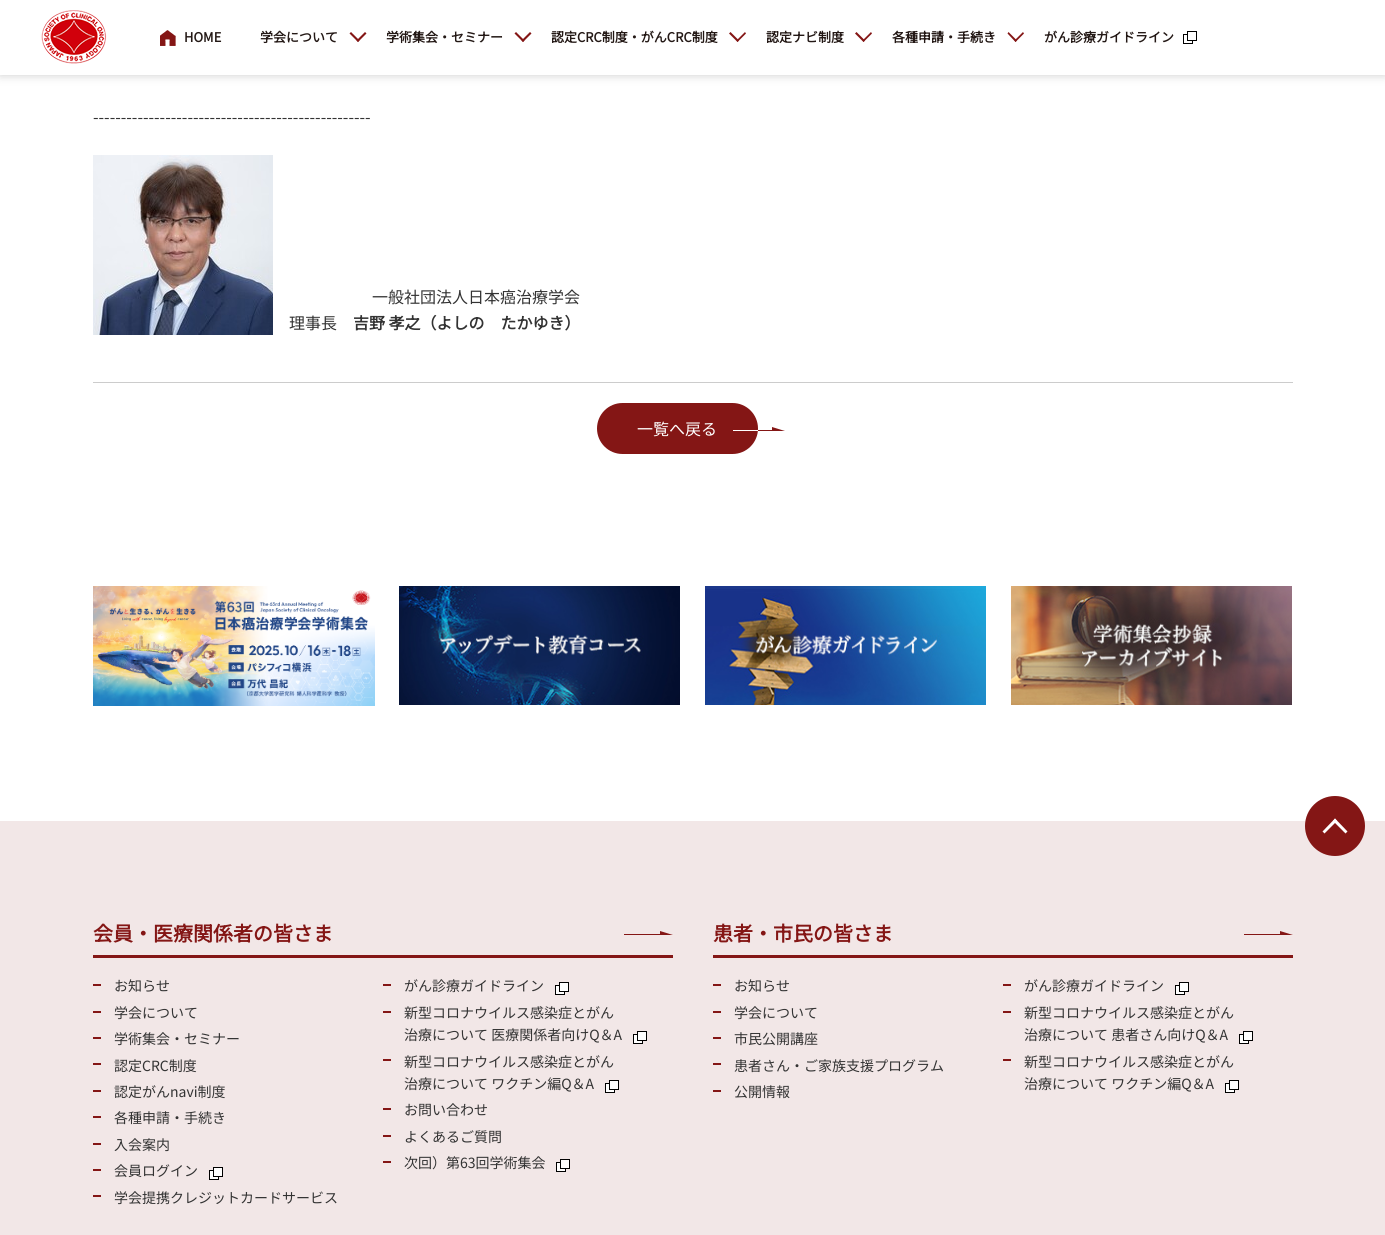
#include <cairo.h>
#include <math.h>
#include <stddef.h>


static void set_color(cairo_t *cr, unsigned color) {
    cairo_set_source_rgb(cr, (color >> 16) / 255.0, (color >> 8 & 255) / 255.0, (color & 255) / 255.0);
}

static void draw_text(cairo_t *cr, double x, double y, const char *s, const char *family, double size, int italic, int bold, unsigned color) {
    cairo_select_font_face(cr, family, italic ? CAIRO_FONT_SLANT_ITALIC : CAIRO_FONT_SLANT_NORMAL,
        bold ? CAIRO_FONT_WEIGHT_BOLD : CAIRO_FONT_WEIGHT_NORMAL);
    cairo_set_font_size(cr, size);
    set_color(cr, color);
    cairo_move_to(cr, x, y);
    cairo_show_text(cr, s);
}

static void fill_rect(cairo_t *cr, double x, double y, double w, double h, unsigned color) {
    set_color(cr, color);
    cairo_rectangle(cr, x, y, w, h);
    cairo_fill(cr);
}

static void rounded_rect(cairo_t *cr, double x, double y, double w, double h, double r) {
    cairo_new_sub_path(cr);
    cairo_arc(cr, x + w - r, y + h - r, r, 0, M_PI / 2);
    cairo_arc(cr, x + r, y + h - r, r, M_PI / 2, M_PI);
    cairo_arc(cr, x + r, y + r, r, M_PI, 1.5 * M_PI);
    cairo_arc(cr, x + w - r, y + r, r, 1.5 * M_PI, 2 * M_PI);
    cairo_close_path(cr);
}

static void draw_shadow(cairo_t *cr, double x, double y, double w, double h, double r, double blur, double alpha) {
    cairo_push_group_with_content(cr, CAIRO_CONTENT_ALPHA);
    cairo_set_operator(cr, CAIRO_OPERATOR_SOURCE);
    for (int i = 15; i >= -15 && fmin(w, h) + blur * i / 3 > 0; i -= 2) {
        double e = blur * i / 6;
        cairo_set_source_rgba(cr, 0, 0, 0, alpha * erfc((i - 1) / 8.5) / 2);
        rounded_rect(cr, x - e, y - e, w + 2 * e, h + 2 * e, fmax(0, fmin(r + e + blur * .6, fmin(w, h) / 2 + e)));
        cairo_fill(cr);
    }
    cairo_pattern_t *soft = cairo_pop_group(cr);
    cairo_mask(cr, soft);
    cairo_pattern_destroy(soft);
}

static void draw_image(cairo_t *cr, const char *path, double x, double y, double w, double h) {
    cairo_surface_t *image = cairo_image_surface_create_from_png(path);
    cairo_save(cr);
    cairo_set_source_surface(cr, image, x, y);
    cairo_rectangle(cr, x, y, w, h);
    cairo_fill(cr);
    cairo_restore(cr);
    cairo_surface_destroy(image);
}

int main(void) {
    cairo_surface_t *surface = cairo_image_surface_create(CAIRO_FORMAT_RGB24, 1385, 1235);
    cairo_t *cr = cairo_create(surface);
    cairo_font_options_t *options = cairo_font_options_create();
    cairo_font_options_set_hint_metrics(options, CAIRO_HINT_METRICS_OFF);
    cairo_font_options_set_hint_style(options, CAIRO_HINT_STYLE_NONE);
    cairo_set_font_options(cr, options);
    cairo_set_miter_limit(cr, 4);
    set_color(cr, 0xFFFFFF);
    cairo_paint(cr);
    set_color(cr, 0x000000);
    draw_shadow(cr, 0, 0, 1385, 75, 0, 5, 0.2);
    fill_rect(cr, 0, 0, 1385, 75, 0xFFFFFF);
    draw_image(cr, "assets/img1.png", 40, 10, 67, 54);
    draw_image(cr, "assets/img2.png", 160, 30, 16, 16);
    draw_text(cr, 184, 42, "HOME", "Noto Sans JP", 13, 0, 1, 0x231815);
    draw_text(cr, 260, 42, "学会について", "Noto Sans JP", 13, 0, 1, 0x231815);
    set_color(cr, 0x841615);
    cairo_new_path(cr);
    cairo_move_to(cr, 356.5, 40.5);
    cairo_line_to(cr, 365, 32);
    cairo_line_to(cr, 366.5, 33.5);
    cairo_line_to(cr, 358, 42);
    cairo_close_path(cr);
    cairo_fill(cr);
    cairo_new_path(cr);
    cairo_move_to(cr, 349.5, 33.5);
    cairo_line_to(cr, 351, 32);
    cairo_line_to(cr, 359.5, 40.5);
    cairo_line_to(cr, 358, 42);
    cairo_close_path(cr);
    cairo_fill(cr);
    draw_text(cr, 386, 42, "学術集会・セミナー", "Noto Sans JP", 13, 0, 1, 0x231815);
    set_color(cr, 0x841615);
    cairo_new_path(cr);
    cairo_move_to(cr, 521.5, 40.5);
    cairo_line_to(cr, 530, 32);
    cairo_line_to(cr, 531.5, 33.5);
    cairo_line_to(cr, 523, 42);
    cairo_close_path(cr);
    cairo_fill(cr);
    cairo_new_path(cr);
    cairo_move_to(cr, 514.5, 33.5);
    cairo_line_to(cr, 516, 32);
    cairo_line_to(cr, 524.5, 40.5);
    cairo_line_to(cr, 523, 42);
    cairo_close_path(cr);
    cairo_fill(cr);
    draw_text(cr, 551, 42, "認定CRC制度・がんCRC制度", "Noto Sans JP", 13, 0, 1, 0x231815);
    set_color(cr, 0x841615);
    cairo_new_path(cr);
    cairo_move_to(cr, 736.5, 40.5);
    cairo_line_to(cr, 745, 32);
    cairo_line_to(cr, 746, 33.5);
    cairo_line_to(cr, 737.5, 42);
    cairo_close_path(cr);
    cairo_fill(cr);
    cairo_new_path(cr);
    cairo_move_to(cr, 729, 33.5);
    cairo_line_to(cr, 730.5, 32);
    cairo_line_to(cr, 739, 40.5);
    cairo_line_to(cr, 737.5, 42);
    cairo_close_path(cr);
    cairo_fill(cr);
    draw_text(cr, 766, 42, "認定ナビ制度", "Noto Sans JP", 13, 0, 1, 0x231815);
    set_color(cr, 0x841615);
    cairo_new_path(cr);
    cairo_move_to(cr, 862.5, 40.5);
    cairo_line_to(cr, 871, 32);
    cairo_line_to(cr, 872, 33.5);
    cairo_line_to(cr, 863.5, 42);
    cairo_close_path(cr);
    cairo_fill(cr);
    cairo_new_path(cr);
    cairo_move_to(cr, 855, 33.5);
    cairo_line_to(cr, 856.5, 32);
    cairo_line_to(cr, 865, 40.5);
    cairo_line_to(cr, 863.5, 42);
    cairo_close_path(cr);
    cairo_fill(cr);
    draw_text(cr, 892, 42, "各種申請・手続き", "Noto Sans JP", 13, 0, 1, 0x231815);
    set_color(cr, 0x841615);
    cairo_new_path(cr);
    cairo_move_to(cr, 1014.5, 40.5);
    cairo_line_to(cr, 1023, 32);
    cairo_line_to(cr, 1024, 33.5);
    cairo_line_to(cr, 1015.5, 42);
    cairo_close_path(cr);
    cairo_fill(cr);
    cairo_new_path(cr);
    cairo_move_to(cr, 1007.5, 33.5);
    cairo_line_to(cr, 1008.5, 32);
    cairo_line_to(cr, 1017, 40.5);
    cairo_line_to(cr, 1015.5, 42);
    cairo_close_path(cr);
    cairo_fill(cr);
    draw_text(cr, 1044, 42, "がん診療ガイドライン", "Noto Sans JP", 13, 0, 1, 0x231815);
    draw_image(cr, "assets/img3.png", 1183, 31, 14, 13);
    draw_text(cr, 93, 123, "--------------------------------------------------", "Noto Sans JP Thin", 16, 0, 0, 0x333333);
    draw_image(cr, "assets/img4.png", 93, 155, 180, 180);
    draw_text(cr, 372, 303, "一般社団法人日本癌治療学会", "Noto Sans JP Thin", 16, 0, 0, 0x333333);
    draw_text(cr, 289, 329, "理事長", "Noto Sans JP Thin", 16, 0, 0, 0x333333);
    draw_text(cr, 353, 329, "吉野 孝之（よしの　たかゆき）", "Noto Sans JP", 16, 0, 1, 0x333333);
    fill_rect(cr, 93, 382, 1200, 1, 0xCCCCCC);
    set_color(cr, 0x841615);
    rounded_rect(cr, 597, 403, 161, 51, 25.5);
    cairo_fill(cr);
    draw_text(cr, 637, 435, "一覧へ戻る", "Noto Sans JP Thin", 16, 0, 0, 0xFFFFFF);
    draw_image(cr, "assets/img5.png", 733, 427, 52, 4);
    draw_image(cr, "assets/img6.png", 93, 586, 282, 120);
    draw_image(cr, "assets/img7.png", 399, 586, 281, 119);
    draw_image(cr, "assets/img8.png", 705, 586, 281, 119);
    draw_image(cr, "assets/img9.png", 1011, 586, 281, 119);
    fill_rect(cr, 0, 821, 1385, 414, 0xF2E7E7);
    set_color(cr, 0x841615);
    cairo_arc(cr, 1335, 826, 30, 0, 2 * M_PI);
    cairo_fill(cr);
    set_color(cr, 0xFFFFFF);
    cairo_new_path(cr);
    cairo_move_to(cr, 1322.5, 831.5);
    cairo_line_to(cr, 1335, 818.5);
    cairo_line_to(cr, 1337, 821);
    cairo_line_to(cr, 1324.5, 833.5);
    cairo_close_path(cr);
    cairo_fill(cr);
    cairo_new_path(cr);
    cairo_move_to(cr, 1333, 821);
    cairo_line_to(cr, 1335, 818.5);
    cairo_line_to(cr, 1347.5, 831.5);
    cairo_line_to(cr, 1345.5, 833.5);
    cairo_close_path(cr);
    cairo_fill(cr);
    fill_rect(cr, 93, 955, 580, 3, 0x841615);
    draw_text(cr, 93, 941, "会員・医療関係者の皆さま", "Noto Sans JP", 20, 0, 1, 0x841615);
    draw_image(cr, "assets/img10.png", 624, 931, 49, 4);
    fill_rect(cr, 93, 984, 8, 2, 0x841615);
    draw_text(cr, 114, 991, "お知らせ", "Noto Sans JP Thin", 14, 0, 0, 0x333333);
    fill_rect(cr, 93, 1011, 8, 2, 0x841615);
    draw_text(cr, 114, 1018, "学会について", "Noto Sans JP Thin", 14, 0, 0, 0x333333);
    fill_rect(cr, 93, 1037, 8, 2, 0x841615);
    draw_text(cr, 114, 1044, "学術集会・セミナー", "Noto Sans JP Thin", 14, 0, 0, 0x333333);
    fill_rect(cr, 93, 1063, 8, 2, 0x841615);
    draw_text(cr, 114, 1071, "認定CRC制度", "Noto Sans JP Thin", 14, 0, 0, 0x333333);
    fill_rect(cr, 93, 1090, 8, 2, 0x841615);
    draw_text(cr, 114, 1097, "認定がんnavi制度", "Noto Sans JP Thin", 14, 0, 0, 0x333333);
    fill_rect(cr, 93, 1116, 8, 2, 0x841615);
    draw_text(cr, 114, 1123, "各種申請・手続き", "Noto Sans JP Thin", 14, 0, 0, 0x333333);
    fill_rect(cr, 93, 1143, 8, 2, 0x841615);
    draw_text(cr, 114, 1150, "入会案内", "Noto Sans JP Thin", 14, 0, 0, 0x333333);
    fill_rect(cr, 93, 1169, 8, 2, 0x841615);
    draw_text(cr, 114, 1176, "会員ログイン", "Noto Sans JP Thin", 14, 0, 0, 0x333333);
    draw_image(cr, "assets/img11.png", 209, 1167, 14, 13);
    fill_rect(cr, 93, 1195, 8, 2, 0x841615);
    draw_text(cr, 114, 1203, "学会提携クレジットカードサービス", "Noto Sans JP Thin", 14, 0, 0, 0x333333);
    fill_rect(cr, 383, 984, 8, 2, 0x841615);
    draw_text(cr, 404, 991, "がん診療ガイドライン", "Noto Sans JP Thin", 14, 0, 0, 0x333333);
    draw_image(cr, "assets/img11.png", 555, 982, 14, 13);
    fill_rect(cr, 383, 1011, 8, 2, 0x841615);
    draw_text(cr, 404, 1018, "新型コロナウイルス感染症とがん", "Noto Sans JP Thin", 14, 0, 0, 0x333333);
    draw_text(cr, 404, 1040, "治療について 医療関係者向けQ＆A", "Noto Sans JP Thin", 14, 0, 0, 0x333333);
    draw_image(cr, "assets/img11.png", 633, 1031, 14, 13);
    fill_rect(cr, 383, 1059, 8, 2, 0x841615);
    draw_text(cr, 404, 1067, "新型コロナウイルス感染症とがん", "Noto Sans JP Thin", 14, 0, 0, 0x333333);
    draw_text(cr, 404, 1089, "治療について ワクチン編Q＆A", "Noto Sans JP Thin", 14, 0, 0, 0x333333);
    draw_image(cr, "assets/img11.png", 605, 1080, 14, 13);
    fill_rect(cr, 383, 1108, 8, 2, 0x841615);
    draw_text(cr, 404, 1115, "お問い合わせ", "Noto Sans JP Thin", 14, 0, 0, 0x333333);
    fill_rect(cr, 383, 1135, 8, 2, 0x841615);
    draw_text(cr, 404, 1142, "よくあるご質問", "Noto Sans JP Thin", 14, 0, 0, 0x333333);
    fill_rect(cr, 383, 1161, 8, 2, 0x841615);
    draw_text(cr, 404, 1168, "次回）第63回学術集会", "Noto Sans JP Thin", 14, 0, 0, 0x333333);
    draw_image(cr, "assets/img11.png", 556, 1159, 14, 13);
    fill_rect(cr, 713, 955, 580, 3, 0x841615);
    draw_text(cr, 713, 941, "患者・市民の皆さま", "Noto Sans JP", 20, 0, 1, 0x841615);
    draw_image(cr, "assets/img10.png", 1244, 931, 49, 4);
    fill_rect(cr, 713, 984, 8, 2, 0x841615);
    draw_text(cr, 734, 991, "お知らせ", "Noto Sans JP Thin", 14, 0, 0, 0x333333);
    fill_rect(cr, 713, 1011, 8, 2, 0x841615);
    draw_text(cr, 734, 1018, "学会について", "Noto Sans JP Thin", 14, 0, 0, 0x333333);
    fill_rect(cr, 713, 1037, 8, 2, 0x841615);
    draw_text(cr, 734, 1044, "市民公開講座", "Noto Sans JP Thin", 14, 0, 0, 0x333333);
    fill_rect(cr, 713, 1063, 8, 2, 0x841615);
    draw_text(cr, 734, 1071, "患者さん・ご家族支援プログラム", "Noto Sans JP Thin", 14, 0, 0, 0x333333);
    fill_rect(cr, 713, 1090, 8, 2, 0x841615);
    draw_text(cr, 734, 1097, "公開情報", "Noto Sans JP Thin", 14, 0, 0, 0x333333);
    fill_rect(cr, 1003, 984, 8, 2, 0x841615);
    draw_text(cr, 1024, 991, "がん診療ガイドライン", "Noto Sans JP Thin", 14, 0, 0, 0x333333);
    draw_image(cr, "assets/img11.png", 1175, 982, 14, 13);
    fill_rect(cr, 1003, 1011, 8, 2, 0x841615);
    draw_text(cr, 1024, 1018, "新型コロナウイルス感染症とがん", "Noto Sans JP Thin", 14, 0, 0, 0x333333);
    draw_text(cr, 1024, 1040, "治療について 患者さん向けQ＆A", "Noto Sans JP Thin", 14, 0, 0, 0x333333);
    draw_image(cr, "assets/img11.png", 1239, 1031, 14, 13);
    fill_rect(cr, 1003, 1059, 8, 2, 0x841615);
    draw_text(cr, 1024, 1067, "新型コロナウイルス感染症とがん", "Noto Sans JP Thin", 14, 0, 0, 0x333333);
    draw_text(cr, 1024, 1089, "治療について ワクチン編Q＆A", "Noto Sans JP Thin", 14, 0, 0, 0x333333);
    draw_image(cr, "assets/img11.png", 1225, 1080, 14, 13);
    cairo_surface_write_to_png(surface, "output.png");
    cairo_font_options_destroy(options);
    cairo_destroy(cr);
    cairo_surface_destroy(surface);
    return 0;
}
